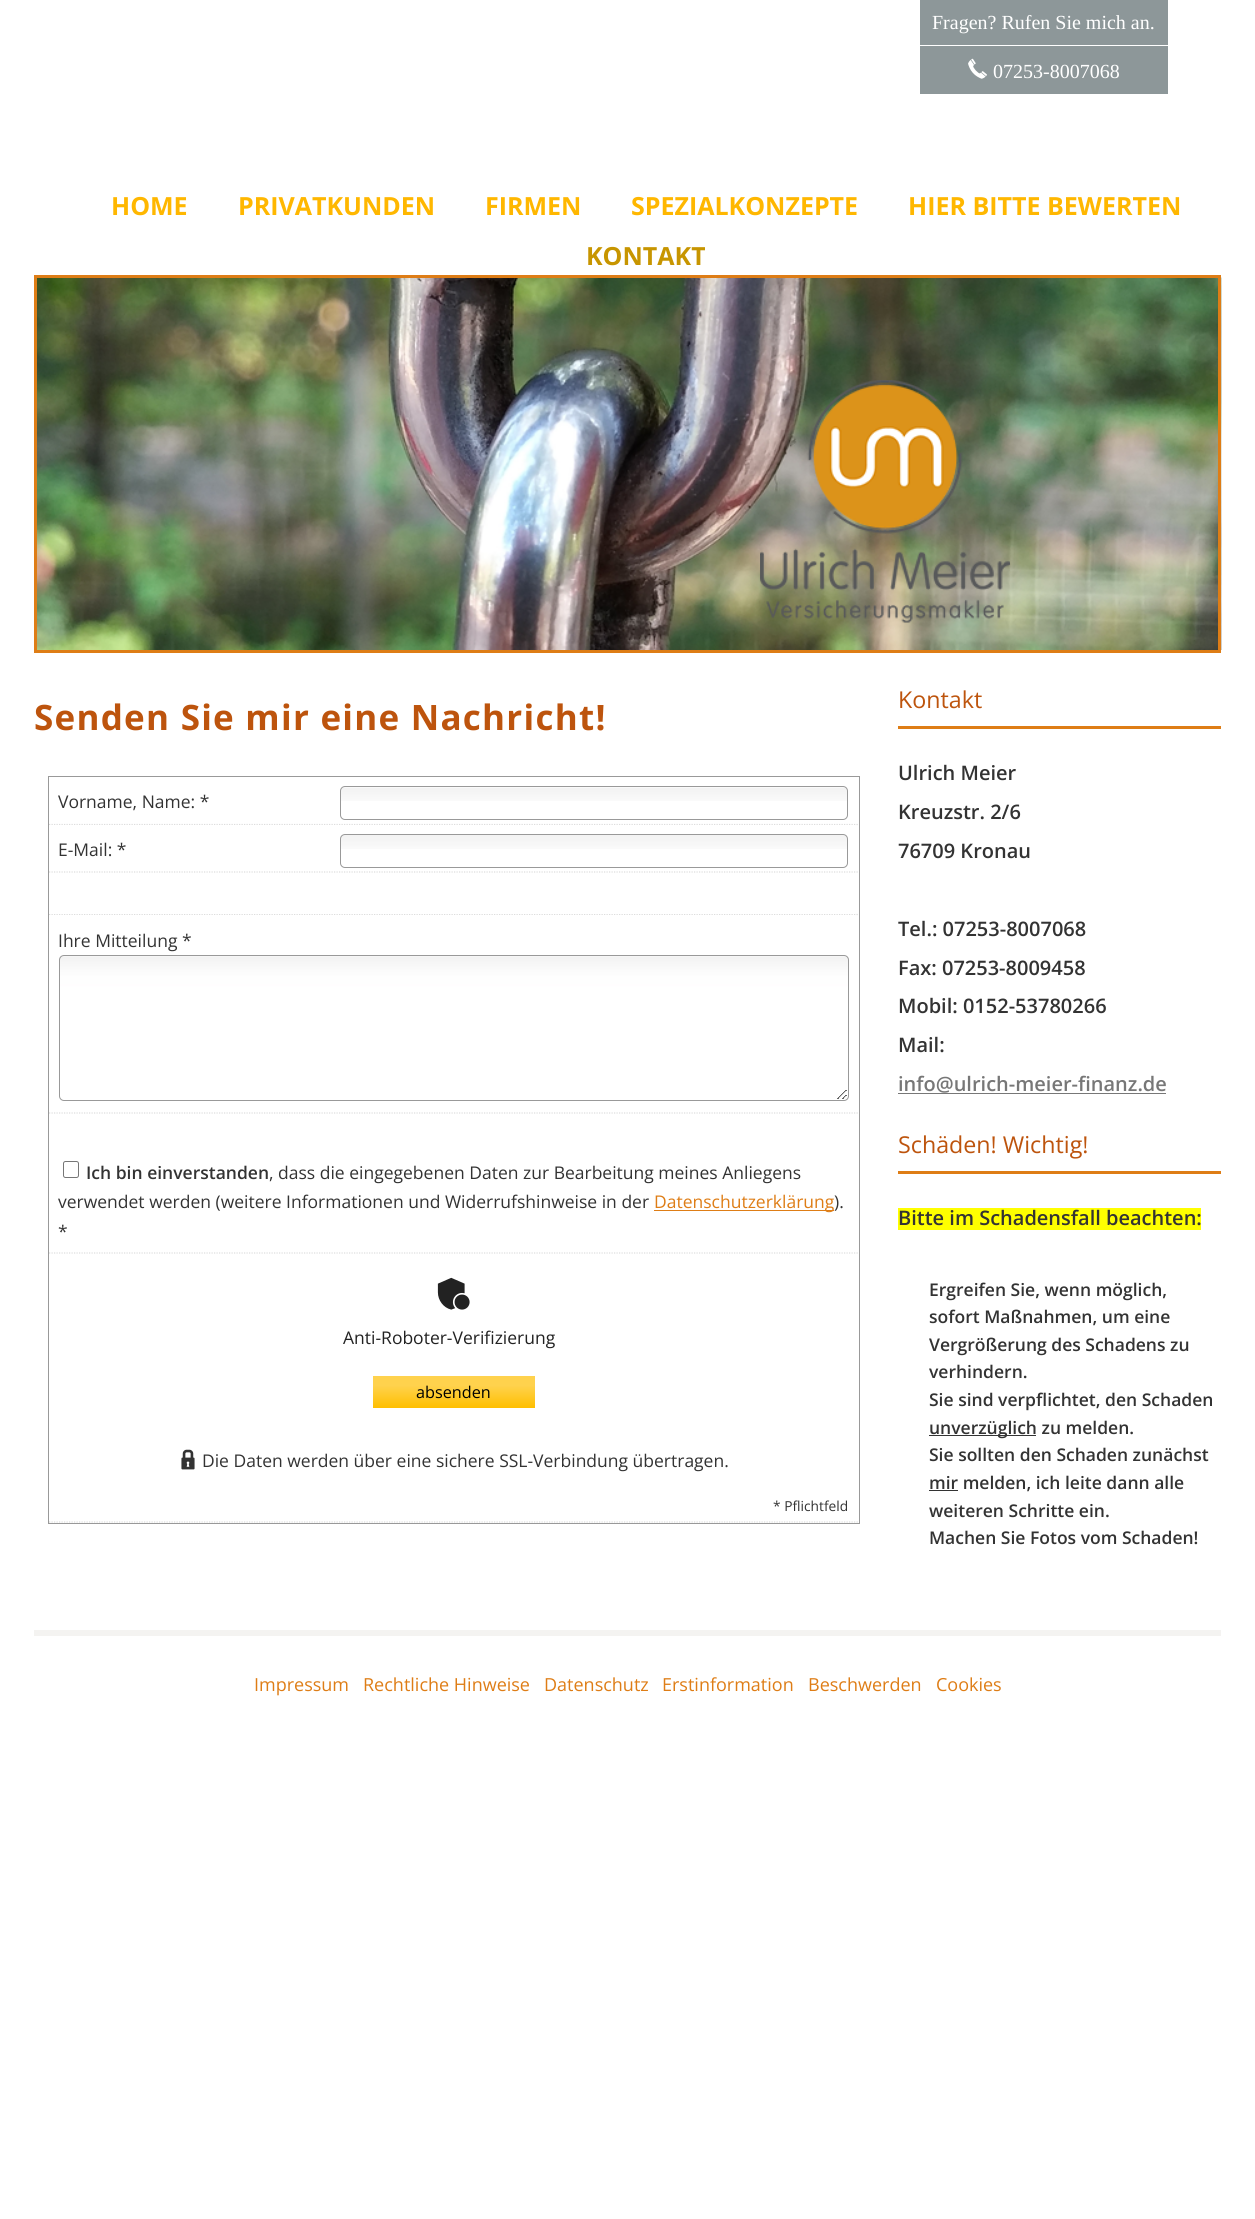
#include <cairo.h>
#include <math.h>
#include <stddef.h>


static void set_color(cairo_t *cr, unsigned color) {
    cairo_set_source_rgb(cr, (color >> 16) / 255.0, (color >> 8 & 255) / 255.0, (color & 255) / 255.0);
}

static void draw_text(cairo_t *cr, double x, double y, const char *s, const char *family, double size, int italic, int bold, unsigned color) {
    cairo_select_font_face(cr, family, italic ? CAIRO_FONT_SLANT_ITALIC : CAIRO_FONT_SLANT_NORMAL,
        bold ? CAIRO_FONT_WEIGHT_BOLD : CAIRO_FONT_WEIGHT_NORMAL);
    cairo_set_font_size(cr, size);
    set_color(cr, color);
    cairo_move_to(cr, x, y);
    cairo_show_text(cr, s);
}

static void draw_spaced(cairo_t *cr, double x, double y, const char *s, double letter, double word) {
    cairo_move_to(cr, x, y);
    while (*s) {
        char ch[5] = {0};
        int n = 0;
        do ch[n++] = *s++; while ((*s & 0xC0) == 0x80);
        cairo_show_text(cr, ch);
        cairo_rel_move_to(cr, letter + word * (*ch == ' '), 0);
    }
}

static void fill_rect(cairo_t *cr, double x, double y, double w, double h, unsigned color) {
    set_color(cr, color);
    cairo_rectangle(cr, x, y, w, h);
    cairo_fill(cr);
}

static void rounded_rect(cairo_t *cr, double x, double y, double w, double h, double r) {
    cairo_new_sub_path(cr);
    cairo_arc(cr, x + w - r, y + h - r, r, 0, M_PI / 2);
    cairo_arc(cr, x + r, y + h - r, r, M_PI / 2, M_PI);
    cairo_arc(cr, x + r, y + r, r, M_PI, 1.5 * M_PI);
    cairo_arc(cr, x + w - r, y + r, r, 1.5 * M_PI, 2 * M_PI);
    cairo_close_path(cr);
}

static void draw_image(cairo_t *cr, const char *path, double x, double y, double w, double h) {
    cairo_surface_t *image = cairo_image_surface_create_from_png(path);
    cairo_save(cr);
    cairo_set_source_surface(cr, image, x, y);
    cairo_rectangle(cr, x, y, w, h);
    cairo_fill(cr);
    cairo_restore(cr);
    cairo_surface_destroy(image);
}

int main(void) {
    cairo_surface_t *surface = cairo_image_surface_create(CAIRO_FORMAT_RGB24, 1255, 2219);
    cairo_t *cr = cairo_create(surface);
    cairo_font_options_t *options = cairo_font_options_create();
    cairo_font_options_set_hint_metrics(options, CAIRO_HINT_METRICS_OFF);
    cairo_font_options_set_hint_style(options, CAIRO_HINT_STYLE_NONE);
    cairo_set_font_options(cr, options);
    cairo_set_miter_limit(cr, 4);
    cairo_pattern_t *gradient;
    set_color(cr, 0xFFFFFF);
    cairo_paint(cr);
    draw_image(cr, "assets/img1.png", 37, 277, 1185, 373);
    cairo_rectangle(cr, 35.5, 276.5, 1184, 375);
    set_color(cr, 0xDE7D16);
    cairo_set_line_width(cr, 3);
    cairo_stroke(cr);
    fill_rect(cr, 920, 0, 248, 45, 0x8D9799);
    draw_text(cr, 932, 29, "Fragen? Rufen Sie mich an.", "Liberation Serif", 20, 0, 0, 0xFFFFFF);
    fill_rect(cr, 920, 46, 248, 48, 0x8D9799);
    draw_image(cr, "assets/img2.png", 968, 58, 19, 21);
    draw_text(cr, 993, 78, "07253-8007068", "Liberation Serif", 20, 0, 0, 0xFFFFFF);
    draw_image(cr, "assets/img3.png", 760, 380, 250, 243);
    draw_text(cr, 111, 215, "HOME", "Open Sans", 25, 0, 1, 0xFFB700);
    draw_text(cr, 238, 215, "PRIVATKUNDEN", "Open Sans", 25, 0, 1, 0xFFB700);
    draw_text(cr, 485, 215, "FIRMEN", "Open Sans", 25, 0, 1, 0xFFB700);
    draw_text(cr, 631, 215, "SPEZIALKONZEPTE", "Open Sans", 25, 0, 1, 0xFFB700);
    draw_text(cr, 908, 215, "HIER BITTE BEWERTEN", "Open Sans", 25, 0, 1, 0xFFB700);
    draw_text(cr, 586, 265, "KONTAKT", "Open Sans", 25, 0, 1, 0xC79500);
    cairo_set_font_size(cr, 35);
    set_color(cr, 0xBD540D);
    draw_spaced(cr, 34, 730, "Senden Sie mir eine Nachricht!", 1.25, 0);
    cairo_rectangle(cr, 48.5, 776.5, 811, 747);
    set_color(cr, 0x999999);
    cairo_set_line_width(cr, 1);
    cairo_stroke(cr);
    cairo_new_path(cr);
    cairo_move_to(cr, 49, 824.5);
    cairo_line_to(cr, 859, 824.5);
    set_color(cr, 0xDDDDDD);
    cairo_set_line_width(cr, 1.2);
    cairo_set_dash(cr, (double[]){1.25, 1.25}, 2, 0);
    cairo_stroke(cr);
    draw_text(cr, 58, 808, "Vorname, Name: *", "Open Sans", 17.5, 0, 0, 0x333333);
    draw_image(cr, "assets/img4.png", 340, 787, 507, 14);
    rounded_rect(cr, 340.5, 786.5, 507, 33, 4.5);
    set_color(cr, 0x999999);
    cairo_set_line_width(cr, 1);
    cairo_set_dash(cr, NULL, 0, 0);
    cairo_stroke(cr);
    fill_rect(cr, 49, 825, 806, 1, 0xFFFFFF);
    cairo_new_path(cr);
    cairo_move_to(cr, 49, 872);
    cairo_line_to(cr, 859, 872);
    set_color(cr, 0xDDDDDD);
    cairo_set_line_width(cr, 1.2);
    cairo_set_dash(cr, (double[]){1.25, 1.25}, 2, 0);
    cairo_stroke(cr);
    draw_text(cr, 58, 856, "E-Mail: *", "Open Sans", 17.5, 0, 0, 0x333333);
    draw_image(cr, "assets/img5.png", 340, 835, 507, 14);
    rounded_rect(cr, 340.5, 834.5, 507, 33, 4.5);
    set_color(cr, 0x999999);
    cairo_set_line_width(cr, 1);
    cairo_set_dash(cr, NULL, 0, 0);
    cairo_stroke(cr);
    cairo_new_path(cr);
    cairo_move_to(cr, 49, 914.5);
    cairo_line_to(cr, 859, 914.5);
    set_color(cr, 0xDDDDDD);
    cairo_set_line_width(cr, 1.2);
    cairo_set_dash(cr, (double[]){1.25, 1.25}, 2, 0);
    cairo_stroke(cr);
    fill_rect(cr, 49, 913, 806, 1, 0xFFFFFF);
    fill_rect(cr, 49, 915, 806, 1, 0xFFFFFF);
    cairo_new_path(cr);
    cairo_move_to(cr, 49, 1113);
    cairo_line_to(cr, 859, 1113);
    set_color(cr, 0xDDDDDD);
    cairo_stroke(cr);
    draw_text(cr, 58, 947, "Ihre Mitteilung *", "Open Sans", 17.5, 0, 0, 0x333333);
    draw_image(cr, "assets/img6.png", 59, 956, 790, 143);
    rounded_rect(cr, 59.5, 955.5, 789, 145, 4.5);
    set_color(cr, 0x999999);
    cairo_set_line_width(cr, 1);
    cairo_set_dash(cr, NULL, 0, 0);
    cairo_stroke(cr);
    cairo_new_path(cr);
    cairo_move_to(cr, 49, 1253);
    cairo_line_to(cr, 859, 1253);
    set_color(cr, 0xDDDDDD);
    cairo_set_line_width(cr, 1.2);
    cairo_set_dash(cr, (double[]){1.25, 1.25}, 2, 0);
    cairo_stroke(cr);
    rounded_rect(cr, 63.5, 1161.5, 15, 16, 2);
    set_color(cr, 0x767676);
    cairo_set_line_width(cr, 1);
    cairo_set_dash(cr, NULL, 0, 0);
    cairo_stroke(cr);
    draw_text(cr, 86, 1179, "Ich bin einverstanden", "Open Sans SemiBold", 17.5, 0, 0, 0x333333);
    draw_text(cr, 269, 1179, ", dass die eingegebenen Daten zur Bearbeitung meines Anliegens", "Open Sans", 17.5, 0, 0, 0x333333);
    draw_text(cr, 58, 1208, "verwendet werden (weitere Informationen und Widerrufshinweise in der", "Open Sans", 17.5, 0, 0, 0x333333);
    fill_rect(cr, 654, 1210, 180, 1, 0xDE7D16);
    draw_text(cr, 654, 1208, "Datenschutzerklärung", "Open Sans", 17.5, 0, 0, 0xDE7D16);
    draw_text(cr, 834, 1208, ").", "Open Sans", 17.5, 0, 0, 0x333333);
    draw_text(cr, 58, 1238, "*", "Open Sans", 17.5, 0, 0, 0x333333);
    cairo_new_path(cr);
    cairo_move_to(cr, 49, 1522);
    cairo_line_to(cr, 859, 1522);
    set_color(cr, 0xDDDDDD);
    cairo_set_line_width(cr, 1.2);
    cairo_set_dash(cr, (double[]){1.25, 1.25}, 2, 0);
    cairo_stroke(cr);
    draw_image(cr, "assets/img7.png", 437, 1277, 33, 33);
    draw_text(cr, 343, 1344, "Anti-Roboter-Verifizierung", "Open Sans", 17.5, 0, 0, 0x222222);
    gradient = cairo_pattern_create_linear(454, 1376, 454, 1408);
    cairo_pattern_add_color_stop_rgba(gradient, 0.3, 1, 0.824, 0.302, 1);
    cairo_pattern_add_color_stop_rgba(gradient, 1, 1, 0.749, 0, 1);
    cairo_set_source(cr, gradient);
    cairo_pattern_destroy(gradient);
    cairo_rectangle(cr, 373, 1376, 162, 32);
    cairo_fill(cr);
    draw_text(cr, 416, 1398, "absenden", "Open Sans", 16.25, 0, 0, 0x000000);
    draw_image(cr, "assets/img8.png", 181, 1449, 14, 21);
    draw_text(cr, 202, 1467, "Die Daten werden über eine sichere SSL-Verbindung übertragen.", "Open Sans", 17.5, 0, 0, 0x333333);
    draw_text(cr, 773, 1511, "* Pflichtfeld", "Open Sans", 13.75, 0, 0, 0x333333);
    fill_rect(cr, 898, 726, 323, 3, 0xDE7D16);
    draw_text(cr, 898, 708, "Kontakt", "Open Sans", 23.25, 0, 0, 0xBD540D);
    draw_text(cr, 898, 780, "Ulrich Meier", "Open Sans SemiBold", 20, 0, 0, 0x333333);
    draw_text(cr, 898, 819, "Kreuzstr. 2/6", "Open Sans SemiBold", 20, 0, 0, 0x333333);
    draw_text(cr, 898, 858, "76709 Kronau", "Open Sans SemiBold", 20, 0, 0, 0x333333);
    draw_text(cr, 898, 936, "Tel.: 07253-8007068", "Open Sans SemiBold", 20, 0, 0, 0x333333);
    draw_text(cr, 898, 975, "Fax: 07253-8009458", "Open Sans SemiBold", 20, 0, 0, 0x333333);
    draw_text(cr, 898, 1013, "Mobil: 0152-53780266", "Open Sans SemiBold", 20, 0, 0, 0x333333);
    draw_text(cr, 898, 1052, "Mail:", "Open Sans SemiBold", 20, 0, 0, 0x333333);
    draw_text(cr, 898, 1091, "info@ulrich-meier-finanz.de", "Open Sans SemiBold", 20, 0, 0, 0x777777);
    fill_rect(cr, 898, 1093, 268, 1, 0x777777);
    fill_rect(cr, 898, 1171, 323, 3, 0xDE7D16);
    draw_text(cr, 898, 1153, "Schäden! Wichtig!", "Open Sans", 23.25, 0, 0, 0xBD540D);
    fill_rect(cr, 898, 1208, 303, 22, 0xFFFF00);
    draw_text(cr, 898, 1225, "Bitte im Schadensfall beachten:", "Open Sans SemiBold", 20, 0, 0, 0x333333);
    draw_text(cr, 929, 1296, "Ergreifen Sie, wenn möglich,", "Open Sans SemiBold", 17.5, 0, 0, 0x333333);
    draw_text(cr, 929, 1323, "sofort Maßnahmen, um eine", "Open Sans SemiBold", 17.5, 0, 0, 0x333333);
    draw_text(cr, 929, 1351, "Vergrößerung des Schadens zu", "Open Sans SemiBold", 17.5, 0, 0, 0x333333);
    draw_text(cr, 929, 1378, "verhindern.", "Open Sans SemiBold", 17.5, 0, 0, 0x333333);
    draw_text(cr, 929, 1406, "Sie sind verpflichtet, den Schaden", "Open Sans SemiBold", 17.5, 0, 0, 0x333333);
    fill_rect(cr, 929, 1435, 107, 1, 0x333333);
    draw_text(cr, 929, 1434, "unverzüglich zu melden.", "Open Sans SemiBold", 17.5, 0, 0, 0x333333);
    draw_text(cr, 929, 1461, "Sie sollten den Schaden zunächst", "Open Sans SemiBold", 17.5, 0, 0, 0x333333);
    fill_rect(cr, 929, 1490, 29, 1, 0x333333);
    draw_text(cr, 929, 1489, "mir melden, ich leite dann alle", "Open Sans SemiBold", 17.5, 0, 0, 0x333333);
    draw_text(cr, 929, 1517, "weiteren Schritte ein.", "Open Sans SemiBold", 17.5, 0, 0, 0x333333);
    draw_text(cr, 929, 1544, "Machen Sie Fotos vom Schaden!", "Open Sans SemiBold", 17.5, 0, 0, 0x333333);
    fill_rect(cr, 34, 1630, 1187, 6, 0xF4F3F1);
    draw_text(cr, 254, 1691, "Impressum", "Open Sans", 18, 0, 0, 0xDE7D16);
    draw_text(cr, 363, 1691, "Rechtliche Hinweise", "Open Sans", 18, 0, 0, 0xDE7D16);
    draw_text(cr, 544, 1691, "Datenschutz", "Open Sans", 18, 0, 0, 0xDE7D16);
    draw_text(cr, 662, 1691, "Erstinformation", "Open Sans", 18, 0, 0, 0xDE7D16);
    draw_text(cr, 808, 1691, "Beschwerden", "Open Sans", 18, 0, 0, 0xDE7D16);
    draw_text(cr, 936, 1691, "Cookies", "Open Sans", 18, 0, 0, 0xDE7D16);
    cairo_surface_write_to_png(surface, "output.png");
    cairo_font_options_destroy(options);
    cairo_destroy(cr);
    cairo_surface_destroy(surface);
    return 0;
}
